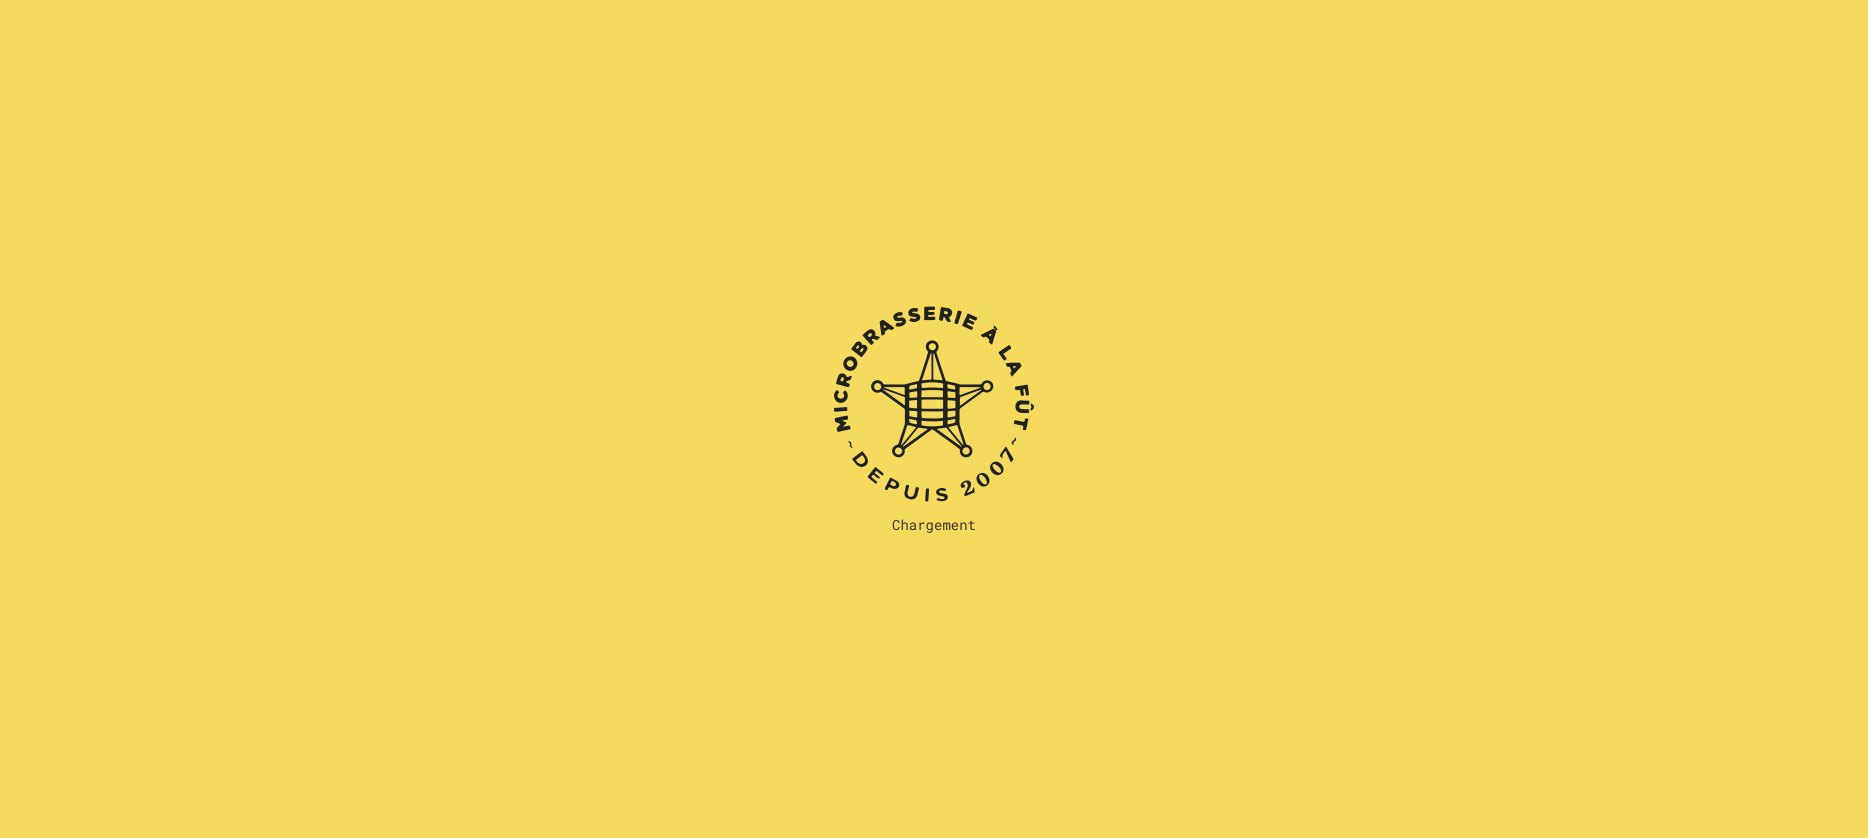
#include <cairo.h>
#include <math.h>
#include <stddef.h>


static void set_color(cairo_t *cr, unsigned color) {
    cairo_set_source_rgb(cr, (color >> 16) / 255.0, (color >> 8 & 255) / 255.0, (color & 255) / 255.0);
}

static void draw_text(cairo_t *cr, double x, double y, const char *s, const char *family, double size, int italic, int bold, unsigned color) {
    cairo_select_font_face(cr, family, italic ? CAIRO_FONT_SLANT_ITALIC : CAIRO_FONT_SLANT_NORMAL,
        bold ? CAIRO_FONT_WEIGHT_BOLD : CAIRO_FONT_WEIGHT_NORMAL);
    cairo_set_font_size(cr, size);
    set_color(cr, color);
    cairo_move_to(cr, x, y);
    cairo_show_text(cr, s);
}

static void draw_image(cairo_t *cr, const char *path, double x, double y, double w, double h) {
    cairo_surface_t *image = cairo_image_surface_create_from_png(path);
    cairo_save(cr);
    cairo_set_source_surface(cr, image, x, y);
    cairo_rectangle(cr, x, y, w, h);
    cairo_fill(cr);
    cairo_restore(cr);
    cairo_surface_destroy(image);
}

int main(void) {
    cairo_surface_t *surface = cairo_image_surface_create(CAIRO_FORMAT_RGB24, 1868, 838);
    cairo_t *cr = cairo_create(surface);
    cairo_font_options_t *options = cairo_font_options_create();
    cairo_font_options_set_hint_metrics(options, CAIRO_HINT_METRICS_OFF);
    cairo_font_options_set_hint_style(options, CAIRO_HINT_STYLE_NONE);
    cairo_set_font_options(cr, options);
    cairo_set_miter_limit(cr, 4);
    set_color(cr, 0xF4DB5E);
    cairo_paint(cr);
    draw_image(cr, "assets/img1.png", 834, 306, 200, 196);
    draw_text(cr, 892, 530, "Chargement", "Roboto Mono", 14, 0, 0, 0x3D322C);
    cairo_surface_write_to_png(surface, "output.png");
    cairo_font_options_destroy(options);
    cairo_destroy(cr);
    cairo_surface_destroy(surface);
    return 0;
}
